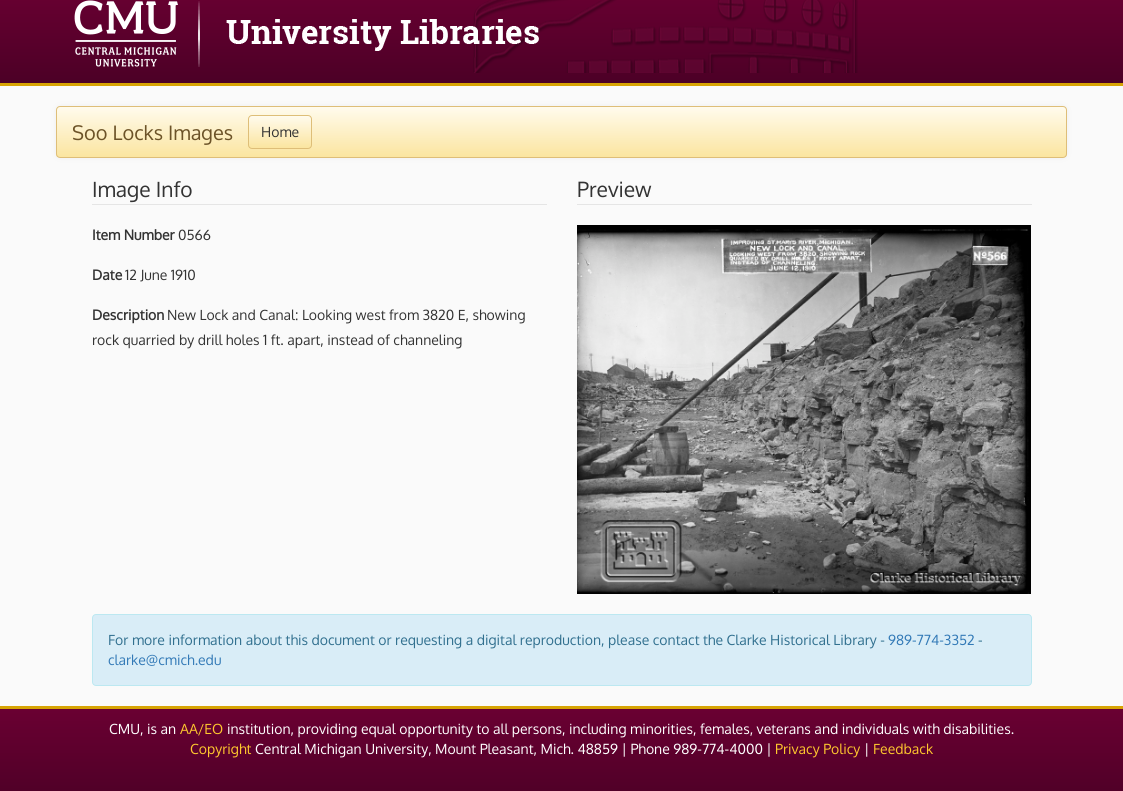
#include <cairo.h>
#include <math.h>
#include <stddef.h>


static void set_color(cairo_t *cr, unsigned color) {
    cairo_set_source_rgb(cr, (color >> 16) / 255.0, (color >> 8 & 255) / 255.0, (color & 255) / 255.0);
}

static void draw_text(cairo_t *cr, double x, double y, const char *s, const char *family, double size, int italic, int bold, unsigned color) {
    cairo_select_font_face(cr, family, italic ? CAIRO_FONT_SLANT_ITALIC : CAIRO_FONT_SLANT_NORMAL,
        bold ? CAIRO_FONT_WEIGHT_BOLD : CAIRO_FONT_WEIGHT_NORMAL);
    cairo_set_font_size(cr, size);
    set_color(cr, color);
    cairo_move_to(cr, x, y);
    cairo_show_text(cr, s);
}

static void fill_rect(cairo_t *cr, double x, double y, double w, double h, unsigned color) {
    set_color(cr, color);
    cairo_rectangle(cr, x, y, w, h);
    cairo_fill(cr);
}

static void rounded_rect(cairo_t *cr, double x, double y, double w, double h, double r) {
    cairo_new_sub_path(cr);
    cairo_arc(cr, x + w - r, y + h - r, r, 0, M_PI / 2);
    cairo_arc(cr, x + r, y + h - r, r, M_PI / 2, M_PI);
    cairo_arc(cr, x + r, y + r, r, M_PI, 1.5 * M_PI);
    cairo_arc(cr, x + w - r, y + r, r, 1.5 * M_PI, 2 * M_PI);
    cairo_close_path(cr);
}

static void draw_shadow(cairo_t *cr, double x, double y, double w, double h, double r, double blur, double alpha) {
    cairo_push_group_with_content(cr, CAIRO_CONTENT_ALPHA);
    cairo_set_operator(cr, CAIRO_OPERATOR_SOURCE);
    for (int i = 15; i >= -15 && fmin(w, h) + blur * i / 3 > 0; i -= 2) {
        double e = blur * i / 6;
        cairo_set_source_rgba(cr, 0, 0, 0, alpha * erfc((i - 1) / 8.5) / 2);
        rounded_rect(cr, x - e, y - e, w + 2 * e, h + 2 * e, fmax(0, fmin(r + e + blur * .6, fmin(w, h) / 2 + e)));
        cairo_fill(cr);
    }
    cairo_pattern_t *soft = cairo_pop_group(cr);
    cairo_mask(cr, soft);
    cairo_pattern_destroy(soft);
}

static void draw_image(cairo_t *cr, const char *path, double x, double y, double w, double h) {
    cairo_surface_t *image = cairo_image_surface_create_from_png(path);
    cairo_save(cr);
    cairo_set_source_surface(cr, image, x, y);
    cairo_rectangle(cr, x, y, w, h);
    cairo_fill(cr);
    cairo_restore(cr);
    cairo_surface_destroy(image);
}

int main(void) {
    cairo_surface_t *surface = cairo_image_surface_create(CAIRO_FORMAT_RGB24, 1123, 791);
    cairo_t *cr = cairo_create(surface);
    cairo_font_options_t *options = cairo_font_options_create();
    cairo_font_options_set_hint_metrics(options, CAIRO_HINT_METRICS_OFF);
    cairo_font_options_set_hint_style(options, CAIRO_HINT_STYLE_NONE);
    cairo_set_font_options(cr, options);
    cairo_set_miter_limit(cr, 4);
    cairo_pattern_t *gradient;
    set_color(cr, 0xFAFAFA);
    cairo_paint(cr);
    gradient = cairo_pattern_create_linear(562, -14, 562, 83);
    cairo_pattern_add_color_stop_rgba(gradient, 0, 0.416, 0, 0.196, 1);
    cairo_pattern_add_color_stop_rgba(gradient, 1, 0.298, 0, 0.149, 1);
    cairo_set_source(cr, gradient);
    cairo_pattern_destroy(gradient);
    cairo_rectangle(cr, 0, 0, 1123, 83);
    cairo_fill(cr);
    fill_rect(cr, 0, 83, 1123, 3, 0xD7A404);
    draw_image(cr, "assets/img1.png", 473, 0, 385, 73);
    draw_image(cr, "assets/img2.png", 74, 0, 126, 67);
    draw_image(cr, "assets/img3.png", 226, 19, 313, 32);
    set_color(cr, 0xEEEEEE);
    draw_shadow(cr, 56, 106, 1011, 52, 4, 2.5, 1);
    cairo_save(cr);
    rounded_rect(cr, 56, 106, 1011, 52, 4);
    cairo_clip(cr);
    gradient = cairo_pattern_create_linear(562, 107, 562, 157);
    cairo_pattern_add_color_stop_rgba(gradient, 0, 1, 0.984, 0.929, 1);
    cairo_pattern_add_color_stop_rgba(gradient, 1, 0.984, 0.898, 0.627, 1);
    cairo_set_source(cr, gradient);
    cairo_pattern_destroy(gradient);
    cairo_rectangle(cr, 56, 107, 1011, 50);
    cairo_fill(cr);
    cairo_restore(cr);
    rounded_rect(cr, 56.5, 106.5, 1010, 51, 3.5);
    set_color(cr, 0xDEBE78);
    cairo_set_line_width(cr, 1);
    cairo_stroke(cr);
    draw_text(cr, 72, 140, "Soo Locks Images", "Oxygen", 20, 0, 0, 0x6C5328);
    cairo_save(cr);
    rounded_rect(cr, 248, 115, 64, 34, 4);
    cairo_clip(cr);
    gradient = cairo_pattern_create_linear(280, 116, 280, 148);
    cairo_pattern_add_color_stop_rgba(gradient, 0, 1, 0.984, 0.929, 1);
    cairo_pattern_add_color_stop_rgba(gradient, 1, 0.984, 0.898, 0.627, 1);
    cairo_set_source(cr, gradient);
    cairo_pattern_destroy(gradient);
    cairo_rectangle(cr, 248, 116, 64, 32);
    cairo_fill(cr);
    cairo_restore(cr);
    rounded_rect(cr, 248.5, 115.5, 63, 33, 3.5);
    set_color(cr, 0xDEBE78);
    cairo_stroke(cr);
    draw_text(cr, 261, 137, "Home", "Oxygen", 14, 0, 0, 0x333333);
    fill_rect(cr, 92, 204, 455, 1, 0xE5E5E5);
    draw_text(cr, 92, 197, "Image Info", "Oxygen", 21, 0, 0, 0x333333);
    draw_text(cr, 92, 240, "Item Number", "Oxygen", 14, 0, 1, 0x333333);
    draw_text(cr, 178, 240, "0566", "Oxygen", 14, 0, 0, 0x333333);
    draw_text(cr, 92, 280, "Date", "Oxygen", 14, 0, 1, 0x333333);
    draw_text(cr, 125, 280, "12 June 1910", "Oxygen", 14, 0, 0, 0x333333);
    draw_text(cr, 92, 320, "Description", "Oxygen", 14, 0, 1, 0x333333);
    draw_text(cr, 167, 320, "New Lock and Canal: Looking west from 3820 E, showing", "Oxygen", 14, 0, 0, 0x333333);
    draw_text(cr, 92, 345, "rock quarried by drill holes 1 ft. apart, instead of channeling", "Oxygen", 14, 0, 0, 0x333333);
    fill_rect(cr, 577, 204, 455, 1, 0xE5E5E5);
    draw_text(cr, 577, 197, "Preview", "Oxygen", 21, 0, 0, 0x333333);
    draw_image(cr, "assets/img4.png", 577, 225, 454, 369);
    set_color(cr, 0xD9EDF7);
    rounded_rect(cr, 92.5, 614.5, 939, 71, 3.5);
    cairo_fill_preserve(cr);
    set_color(cr, 0xBCE8F1);
    cairo_stroke(cr);
    draw_text(cr, 108, 645, "For more information about this document or requesting a digital reproduction, please contact the Clarke Historical Library -", "Oxygen", 14, 0, 0, 0x31708F);
    draw_text(cr, 888, 645, "989-774-3352", "Oxygen", 14, 0, 0, 0x337AB7);
    draw_text(cr, 978, 645, "-", "Oxygen", 14, 0, 0, 0x31708F);
    draw_text(cr, 108, 665, "clarke@cmich.edu", "Oxygen", 14, 0, 0, 0x337AB7);
    gradient = cairo_pattern_create_linear(562, 709, 562, 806);
    cairo_pattern_add_color_stop_rgba(gradient, 0, 0.416, 0, 0.196, 1);
    cairo_pattern_add_color_stop_rgba(gradient, 1, 0.298, 0, 0.149, 1);
    cairo_set_source(cr, gradient);
    cairo_pattern_destroy(gradient);
    cairo_rectangle(cr, 0, 709, 1123, 82);
    cairo_fill(cr);
    fill_rect(cr, 0, 706, 1123, 3, 0xD7A404);
    draw_text(cr, 109, 734, "CMU, is an", "Oxygen", 14, 0, 0, 0xFFFFFF);
    draw_text(cr, 180, 734, "AA/EO", "Oxygen", 14, 0, 0, 0xFFC82E);
    draw_text(cr, 227, 734, "institution, providing equal opportunity to all persons, including minorities, females, veterans and individuals with disabilities.", "Oxygen", 14, 0, 0, 0xFFFFFF);
    draw_text(cr, 190, 754, "Copyright", "Oxygen", 14, 0, 0, 0xFFC82E);
    draw_text(cr, 255, 754, "Central Michigan University, Mount Pleasant, Mich. 48859 | Phone 989-774-4000 |", "Oxygen", 14, 0, 0, 0xFFFFFF);
    draw_text(cr, 775, 754, "Privacy Policy", "Oxygen", 14, 0, 0, 0xFFC82E);
    draw_text(cr, 864, 754, "|", "Oxygen", 14, 0, 0, 0xFFFFFF);
    draw_text(cr, 873, 754, "Feedback", "Oxygen", 14, 0, 0, 0xFFC82E);
    cairo_surface_write_to_png(surface, "output.png");
    cairo_font_options_destroy(options);
    cairo_destroy(cr);
    cairo_surface_destroy(surface);
    return 0;
}
